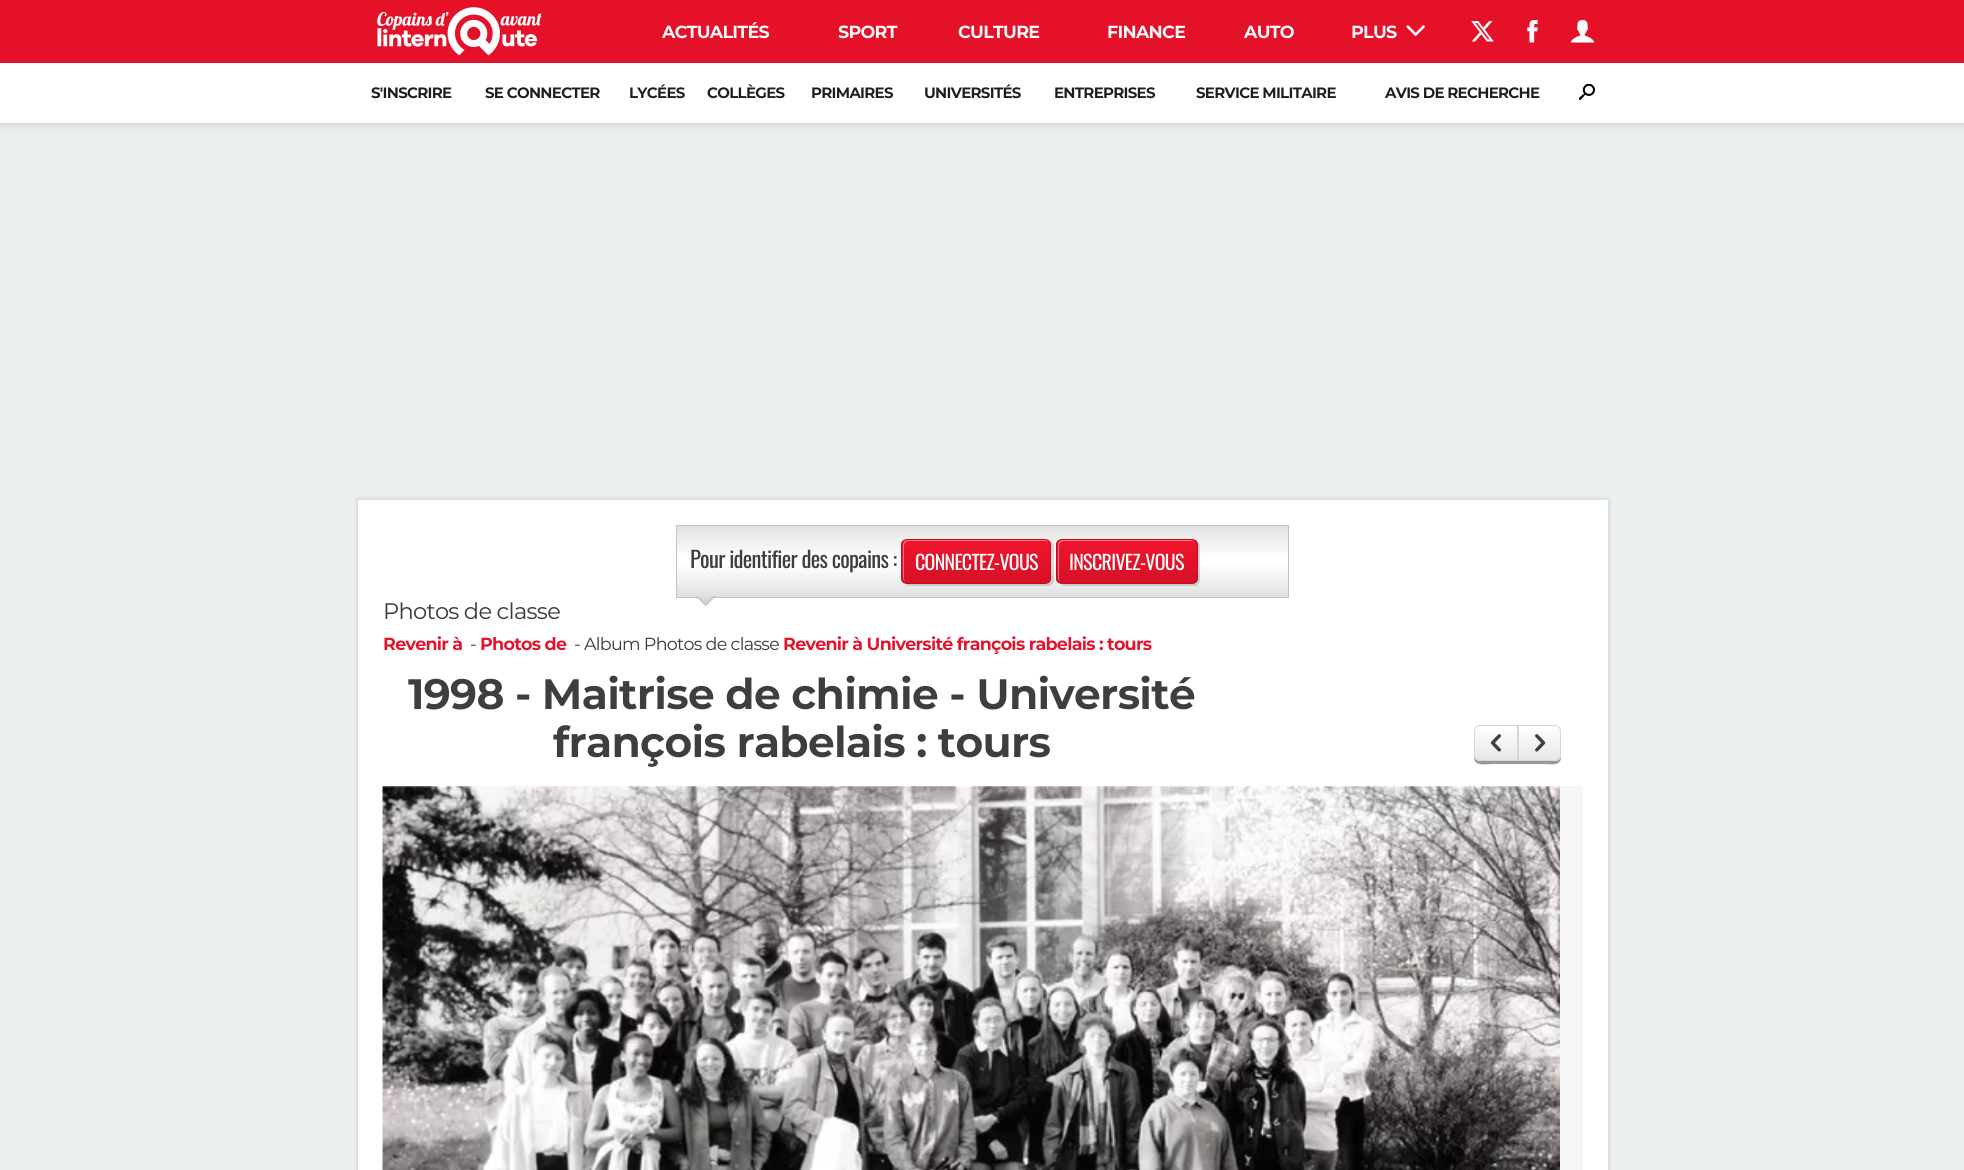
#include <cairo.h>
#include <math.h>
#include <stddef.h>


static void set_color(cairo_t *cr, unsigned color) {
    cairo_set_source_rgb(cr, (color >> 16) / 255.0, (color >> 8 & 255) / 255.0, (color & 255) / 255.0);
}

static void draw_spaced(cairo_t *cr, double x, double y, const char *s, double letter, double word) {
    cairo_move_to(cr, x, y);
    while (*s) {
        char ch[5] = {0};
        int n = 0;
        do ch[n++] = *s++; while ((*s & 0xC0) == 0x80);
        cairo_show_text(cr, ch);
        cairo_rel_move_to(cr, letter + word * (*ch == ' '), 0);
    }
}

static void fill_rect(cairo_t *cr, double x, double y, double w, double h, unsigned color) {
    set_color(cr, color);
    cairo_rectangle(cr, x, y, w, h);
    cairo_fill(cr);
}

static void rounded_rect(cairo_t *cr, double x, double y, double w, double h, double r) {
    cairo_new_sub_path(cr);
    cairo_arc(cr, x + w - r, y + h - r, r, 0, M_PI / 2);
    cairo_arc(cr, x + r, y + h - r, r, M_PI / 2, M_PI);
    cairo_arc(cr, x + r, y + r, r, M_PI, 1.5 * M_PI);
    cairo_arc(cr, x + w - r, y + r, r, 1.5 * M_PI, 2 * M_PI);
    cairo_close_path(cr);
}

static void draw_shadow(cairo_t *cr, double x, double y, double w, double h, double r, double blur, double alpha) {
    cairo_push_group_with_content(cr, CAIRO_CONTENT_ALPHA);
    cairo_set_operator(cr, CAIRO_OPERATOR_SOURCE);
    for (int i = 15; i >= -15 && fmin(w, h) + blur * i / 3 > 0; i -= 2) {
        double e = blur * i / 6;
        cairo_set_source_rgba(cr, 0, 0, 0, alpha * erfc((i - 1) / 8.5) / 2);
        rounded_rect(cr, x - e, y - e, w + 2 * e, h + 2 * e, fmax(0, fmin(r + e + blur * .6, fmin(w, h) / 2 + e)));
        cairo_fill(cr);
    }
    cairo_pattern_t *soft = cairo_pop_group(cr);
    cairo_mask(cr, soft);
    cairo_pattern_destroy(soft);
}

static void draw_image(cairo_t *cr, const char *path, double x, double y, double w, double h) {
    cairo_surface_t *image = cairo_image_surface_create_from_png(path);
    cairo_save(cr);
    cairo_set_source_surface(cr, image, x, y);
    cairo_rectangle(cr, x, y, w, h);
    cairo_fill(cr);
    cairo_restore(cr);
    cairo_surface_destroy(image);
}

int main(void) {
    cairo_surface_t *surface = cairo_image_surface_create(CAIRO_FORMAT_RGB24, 1964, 1170);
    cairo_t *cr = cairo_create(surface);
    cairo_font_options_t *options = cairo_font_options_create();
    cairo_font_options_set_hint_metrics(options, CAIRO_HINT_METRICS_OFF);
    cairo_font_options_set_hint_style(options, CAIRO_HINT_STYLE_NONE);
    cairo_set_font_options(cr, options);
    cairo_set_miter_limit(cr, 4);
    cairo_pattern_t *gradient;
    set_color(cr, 0xEDF0F0);
    cairo_paint(cr);
    set_color(cr, 0x000000);
    draw_shadow(cr, 0, 0, 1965, 123, 0, 5, 0.2);
    fill_rect(cr, 0, 0, 1964, 63, 0xE41129);
    draw_image(cr, "assets/img1.png", 377, 7, 165, 49);
    cairo_select_font_face(cr, "Montserrat", CAIRO_FONT_SLANT_NORMAL, CAIRO_FONT_WEIGHT_BOLD);
    cairo_set_font_size(cr, 17.5);
    set_color(cr, 0xFFFFFF);
    draw_spaced(cr, 662, 38, "ACTUALITÉS", -0.7, 0);
    draw_spaced(cr, 838, 38, "SPORT", -0.7, 0);
    draw_spaced(cr, 958, 38, "CULTURE", -0.7, 0);
    draw_spaced(cr, 1107, 38, "FINANCE", -0.7, 0);
    draw_spaced(cr, 1244, 38, "AUTO", -0.7, 0);
    draw_spaced(cr, 1351, 38, "PLUS", -0.7, 0);
    draw_image(cr, "assets/img2.png", 1406, 25, 19, 11);
    draw_image(cr, "assets/img3.png", 1471, 21, 23, 21);
    draw_image(cr, "assets/img4.png", 1527, 20, 11, 23);
    draw_image(cr, "assets/img5.png", 1570, 20, 25, 23);
    fill_rect(cr, 0, 63, 1964, 60, 0xFFFFFF);
    cairo_set_font_size(cr, 15);
    set_color(cr, 0x1D1D1D);
    draw_spaced(cr, 371, 98, "S'INSCRIRE", -0.7, 0);
    draw_spaced(cr, 485, 98, "SE CONNECTER", -0.7, 0);
    draw_spaced(cr, 629, 98, "LYCÉES", -0.7, 0);
    draw_spaced(cr, 707, 98, "COLLÈGES", -0.7, 0);
    draw_spaced(cr, 811, 98, "PRIMAIRES", -0.7, 0);
    draw_spaced(cr, 924, 98, "UNIVERSITÉS", -0.7, 0);
    draw_spaced(cr, 1054, 98, "ENTREPRISES", -0.7, 0);
    draw_spaced(cr, 1196, 98, "SERVICE MILITAIRE", -0.7, 0);
    draw_spaced(cr, 1385, 98, "AVIS DE RECHERCHE", -0.7, 0);
    draw_image(cr, "assets/img6.png", 1579, 84, 16, 16);
    set_color(cr, 0x000000);
    draw_shadow(cr, 358, 500, 1250, 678, 0, 2.5, 0.2);
    fill_rect(cr, 358, 500, 1250, 670, 0xFFFFFF);
    gradient = cairo_pattern_create_linear(983, 526, 983, 596);
    cairo_pattern_add_color_stop_rgba(gradient, 0, 0.882, 0.882, 0.882, 1);
    cairo_pattern_add_color_stop_rgba(gradient, 0.46, 1, 1, 1, 1);
    cairo_pattern_add_color_stop_rgba(gradient, 0.54, 1, 1, 1, 1);
    cairo_pattern_add_color_stop_rgba(gradient, 1, 0.882, 0.882, 0.882, 1);
    cairo_set_source(cr, gradient);
    cairo_pattern_destroy(gradient);
    cairo_rectangle(cr, 677, 526, 611, 70);
    cairo_fill(cr);
    gradient = cairo_pattern_create_linear(983, 596, 983, 666);
    cairo_pattern_add_color_stop_rgba(gradient, 0, 0.882, 0.882, 0.882, 1);
    cairo_pattern_add_color_stop_rgba(gradient, 0.46, 1, 1, 1, 1);
    cairo_pattern_add_color_stop_rgba(gradient, 0.54, 1, 1, 1, 1);
    cairo_pattern_add_color_stop_rgba(gradient, 1, 0.882, 0.882, 0.882, 1);
    cairo_set_source(cr, gradient);
    cairo_pattern_destroy(gradient);
    cairo_rectangle(cr, 676, 596, 613, 1);
    cairo_fill(cr);
    cairo_rectangle(cr, 676.5, 525.5, 612, 72);
    set_color(cr, 0xC1C1C1);
    cairo_set_line_width(cr, 1);
    cairo_stroke(cr);
    cairo_select_font_face(cr, "Oswald", CAIRO_FONT_SLANT_NORMAL, CAIRO_FONT_WEIGHT_NORMAL);
    cairo_set_font_size(cr, 22.5);
    set_color(cr, 0x3F3E3E);
    draw_spaced(cr, 690, 568, "Pour identifier des copains :", -0.7, 0);
    cairo_set_source_rgba(cr, 0, 0, 0, 0.15);
    cairo_new_path(cr);
    cairo_move_to(cr, 905, 583);
    cairo_curve_to(cr, 906, 585, 908, 586, 910, 586);
    cairo_line_to(cr, 1048, 586);
    cairo_curve_to(cr, 1051, 586, 1054, 583, 1054, 580);
    cairo_line_to(cr, 1054, 547);
    cairo_curve_to(cr, 1054, 544, 1052, 542, 1050, 541);
    cairo_curve_to(cr, 1051, 542, 1051, 544, 1051, 545);
    cairo_line_to(cr, 1051, 578);
    cairo_curve_to(cr, 1051, 581, 1048, 584, 1045, 584);
    cairo_line_to(cr, 908, 584);
    cairo_close_path(cr);
    cairo_fill(cr);
    cairo_save(cr);
    rounded_rect(cr, 901, 539, 150, 45, 6);
    cairo_clip(cr);
    gradient = cairo_pattern_create_linear(976, 540, 976, 583);
    cairo_pattern_add_color_stop_rgba(gradient, 0, 0.945, 0.078, 0.176, 1);
    cairo_pattern_add_color_stop_rgba(gradient, 1, 0.835, 0.067, 0.153, 1);
    cairo_set_source(cr, gradient);
    cairo_pattern_destroy(gradient);
    cairo_rectangle(cr, 901, 540, 150, 43);
    cairo_fill(cr);
    cairo_restore(cr);
    cairo_set_source_rgba(cr, 1, 1, 1, 0.4);
    cairo_new_path(cr);
    cairo_move_to(cr, 909, 541);
    cairo_line_to(cr, 1046, 541);
    cairo_line_to(cr, 1049, 542);
    cairo_curve_to(cr, 1048, 541, 1046, 540, 1045, 540);
    cairo_line_to(cr, 908, 540);
    cairo_curve_to(cr, 905, 540, 903, 542, 903, 545);
    cairo_line_to(cr, 903, 578);
    cairo_curve_to(cr, 903, 579, 904, 581, 905, 582);
    cairo_line_to(cr, 904, 579);
    cairo_line_to(cr, 904, 546);
    cairo_curve_to(cr, 904, 543, 906, 541, 909, 541);
    cairo_close_path(cr);
    cairo_fill(cr);
    rounded_rect(cr, 901.5, 539.5, 149, 44, 5.5);
    set_color(cr, 0xBE0E22);
    cairo_stroke(cr);
    cairo_set_font_size(cr, 20);
    set_color(cr, 0xFFFFFF);
    draw_spaced(cr, 915, 570, "CONNECTEZ-VOUS", -0.7, 0);
    cairo_set_source_rgba(cr, 0, 0, 0, 0.15);
    cairo_new_path(cr);
    cairo_move_to(cr, 1060, 583);
    cairo_curve_to(cr, 1061, 585, 1063, 586, 1065, 586);
    cairo_line_to(cr, 1194, 586);
    cairo_curve_to(cr, 1197, 586, 1200, 583, 1200, 580);
    cairo_line_to(cr, 1200, 547);
    cairo_curve_to(cr, 1200, 545, 1199, 542, 1196, 542);
    cairo_curve_to(cr, 1197, 543, 1198, 544, 1198, 545);
    cairo_line_to(cr, 1198, 578);
    cairo_curve_to(cr, 1198, 581, 1195, 584, 1191, 584);
    cairo_line_to(cr, 1062, 584);
    cairo_close_path(cr);
    cairo_fill(cr);
    cairo_save(cr);
    rounded_rect(cr, 1056, 539, 142, 45, 6);
    cairo_clip(cr);
    gradient = cairo_pattern_create_linear(1127, 540, 1127, 583);
    cairo_pattern_add_color_stop_rgba(gradient, 0, 0.945, 0.078, 0.176, 1);
    cairo_pattern_add_color_stop_rgba(gradient, 1, 0.835, 0.067, 0.153, 1);
    cairo_set_source(cr, gradient);
    cairo_pattern_destroy(gradient);
    cairo_rectangle(cr, 1056, 540, 142, 43);
    cairo_fill(cr);
    cairo_restore(cr);
    cairo_set_source_rgba(cr, 1, 1, 1, 0.4);
    cairo_new_path(cr);
    cairo_move_to(cr, 1064, 541);
    cairo_line_to(cr, 1192, 541);
    cairo_line_to(cr, 1195, 541);
    cairo_curve_to(cr, 1194, 541, 1192, 540, 1191, 540);
    cairo_line_to(cr, 1063, 540);
    cairo_curve_to(cr, 1060, 540, 1058, 542, 1058, 545);
    cairo_line_to(cr, 1058, 578);
    cairo_curve_to(cr, 1058, 579, 1059, 581, 1060, 582);
    cairo_line_to(cr, 1059, 579);
    cairo_line_to(cr, 1059, 546);
    cairo_curve_to(cr, 1059, 543, 1061, 541, 1064, 541);
    cairo_close_path(cr);
    cairo_fill(cr);
    rounded_rect(cr, 1056.5, 539.5, 141, 44, 5.5);
    set_color(cr, 0xBE0E22);
    cairo_stroke(cr);
    set_color(cr, 0xFFFFFF);
    draw_spaced(cr, 1069, 570, "INSCRIVEZ-VOUS", -0.7, 0);
    draw_image(cr, "assets/img7.png", 696, 596, 21, 11);
    cairo_select_font_face(cr, "Montserrat", CAIRO_FONT_SLANT_NORMAL, CAIRO_FONT_WEIGHT_NORMAL);
    cairo_set_font_size(cr, 22.5);
    set_color(cr, 0x3F3E3E);
    draw_spaced(cr, 383, 619, "Photos de classe", -0.7, 0);
    cairo_select_font_face(cr, "Montserrat", CAIRO_FONT_SLANT_NORMAL, CAIRO_FONT_WEIGHT_BOLD);
    cairo_set_font_size(cr, 17.5);
    set_color(cr, 0xE41129);
    draw_spaced(cr, 383, 650, "Revenir à", -0.7, 0);
    cairo_select_font_face(cr, "Montserrat", CAIRO_FONT_SLANT_NORMAL, CAIRO_FONT_WEIGHT_NORMAL);
    set_color(cr, 0x3F3E3E);
    draw_spaced(cr, 470, 650, "-", -0.7, 0);
    cairo_select_font_face(cr, "Montserrat", CAIRO_FONT_SLANT_NORMAL, CAIRO_FONT_WEIGHT_BOLD);
    set_color(cr, 0xE41129);
    draw_spaced(cr, 480, 650, "Photos de", -0.7, 0);
    cairo_select_font_face(cr, "Montserrat", CAIRO_FONT_SLANT_NORMAL, CAIRO_FONT_WEIGHT_NORMAL);
    set_color(cr, 0x3F3E3E);
    draw_spaced(cr, 574, 650, "- Album Photos de classe", -0.7, 0);
    cairo_select_font_face(cr, "Montserrat", CAIRO_FONT_SLANT_NORMAL, CAIRO_FONT_WEIGHT_BOLD);
    set_color(cr, 0xE41129);
    draw_spaced(cr, 783, 650, "Revenir à Université françois rabelais : tours", -0.7, 0);
    cairo_set_font_size(cr, 42.5);
    set_color(cr, 0x3F3E3E);
    draw_spaced(cr, 408, 709, "1998 - Maitrise de chimie - Université", -0.7, 0);
    draw_spaced(cr, 553, 757, "françois rabelais : tours", -0.7, 0);
    fill_rect(cr, 383, 786, 1200, 384, 0xF6F6F6);
    set_color(cr, 0x999999);
    cairo_new_path(cr);
    cairo_move_to(cr, 1474, 757);
    cairo_curve_to(cr, 1474, 767, 1485, 764, 1493, 764);
    cairo_line_to(cr, 1518, 764);
    cairo_line_to(cr, 1518, 728);
    cairo_line_to(cr, 1518, 761);
    cairo_line_to(cr, 1480, 761);
    cairo_curve_to(cr, 1477, 761, 1475, 759, 1474, 757);
    cairo_close_path(cr);
    cairo_fill(cr);
    cairo_save(cr);
    cairo_new_path(cr);
    cairo_move_to(cr, 1480, 725);
    cairo_line_to(cr, 1518, 725);
    cairo_line_to(cr, 1518, 761);
    cairo_line_to(cr, 1480, 761);
    cairo_curve_to(cr, 1476.5, 761, 1474, 758.5, 1474, 755);
    cairo_line_to(cr, 1474, 731);
    cairo_curve_to(cr, 1474, 727.5, 1476.5, 725, 1480, 725);
    cairo_close_path(cr);
    cairo_clip(cr);
    gradient = cairo_pattern_create_linear(1496, 726, 1496, 760);
    cairo_pattern_add_color_stop_rgba(gradient, 0, 1, 1, 1, 1);
    cairo_pattern_add_color_stop_rgba(gradient, 1, 0.906, 0.906, 0.906, 1);
    cairo_set_source(cr, gradient);
    cairo_pattern_destroy(gradient);
    cairo_rectangle(cr, 1474, 726, 43, 34);
    cairo_fill(cr);
    cairo_restore(cr);
    cairo_new_path(cr);
    cairo_move_to(cr, 1480, 725.5);
    cairo_line_to(cr, 1517.5, 725.5);
    cairo_line_to(cr, 1517.5, 760.5);
    cairo_line_to(cr, 1480, 760.5);
    cairo_curve_to(cr, 1477, 760.5, 1474.5, 758, 1474.5, 755);
    cairo_line_to(cr, 1474.5, 731);
    cairo_curve_to(cr, 1474.5, 728, 1477, 725.5, 1480, 725.5);
    cairo_close_path(cr);
    set_color(cr, 0xD5D5D5);
    cairo_stroke(cr);
    cairo_select_font_face(cr, "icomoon", CAIRO_FONT_SLANT_NORMAL, CAIRO_FONT_WEIGHT_NORMAL);
    cairo_set_font_size(cr, 30);
    set_color(cr, 0x3F3E3E);
    draw_spaced(cr, 1481, 753, "'", -0.7, 0);
    set_color(cr, 0x999999);
    cairo_new_path(cr);
    cairo_move_to(cr, 1518, 761);
    cairo_line_to(cr, 1518, 764);
    cairo_line_to(cr, 1543, 764);
    cairo_curve_to(cr, 1550, 764, 1561, 767, 1561, 757);
    cairo_curve_to(cr, 1560, 759, 1558, 761, 1555, 761);
    cairo_close_path(cr);
    cairo_fill(cr);
    cairo_save(cr);
    cairo_new_path(cr);
    cairo_move_to(cr, 1518, 725);
    cairo_line_to(cr, 1555, 725);
    cairo_curve_to(cr, 1558.5, 725, 1561, 727.5, 1561, 731);
    cairo_line_to(cr, 1561, 755);
    cairo_curve_to(cr, 1561, 758.5, 1558.5, 761, 1555, 761);
    cairo_line_to(cr, 1518, 761);
    cairo_close_path(cr);
    cairo_clip(cr);
    gradient = cairo_pattern_create_linear(1539, 726, 1539, 760);
    cairo_pattern_add_color_stop_rgba(gradient, 0, 1, 1, 1, 1);
    cairo_pattern_add_color_stop_rgba(gradient, 1, 0.906, 0.906, 0.906, 1);
    cairo_set_source(cr, gradient);
    cairo_pattern_destroy(gradient);
    cairo_rectangle(cr, 1519, 726, 42, 34);
    cairo_fill(cr);
    cairo_restore(cr);
    cairo_new_path(cr);
    cairo_move_to(cr, 1518.5, 725.5);
    cairo_line_to(cr, 1555, 725.5);
    cairo_curve_to(cr, 1558, 725.5, 1560.5, 728, 1560.5, 731);
    cairo_line_to(cr, 1560.5, 755);
    cairo_curve_to(cr, 1560.5, 758, 1558, 760.5, 1555, 760.5);
    cairo_line_to(cr, 1518.5, 760.5);
    cairo_close_path(cr);
    set_color(cr, 0xD5D5D5);
    cairo_stroke(cr);
    set_color(cr, 0x3F3E3E);
    draw_spaced(cr, 1524, 753, "#", -0.7, 0);
    draw_image(cr, "assets/img8.png", 382, 786, 1178, 384);
    cairo_surface_write_to_png(surface, "output.png");
    cairo_font_options_destroy(options);
    cairo_destroy(cr);
    cairo_surface_destroy(surface);
    return 0;
}
